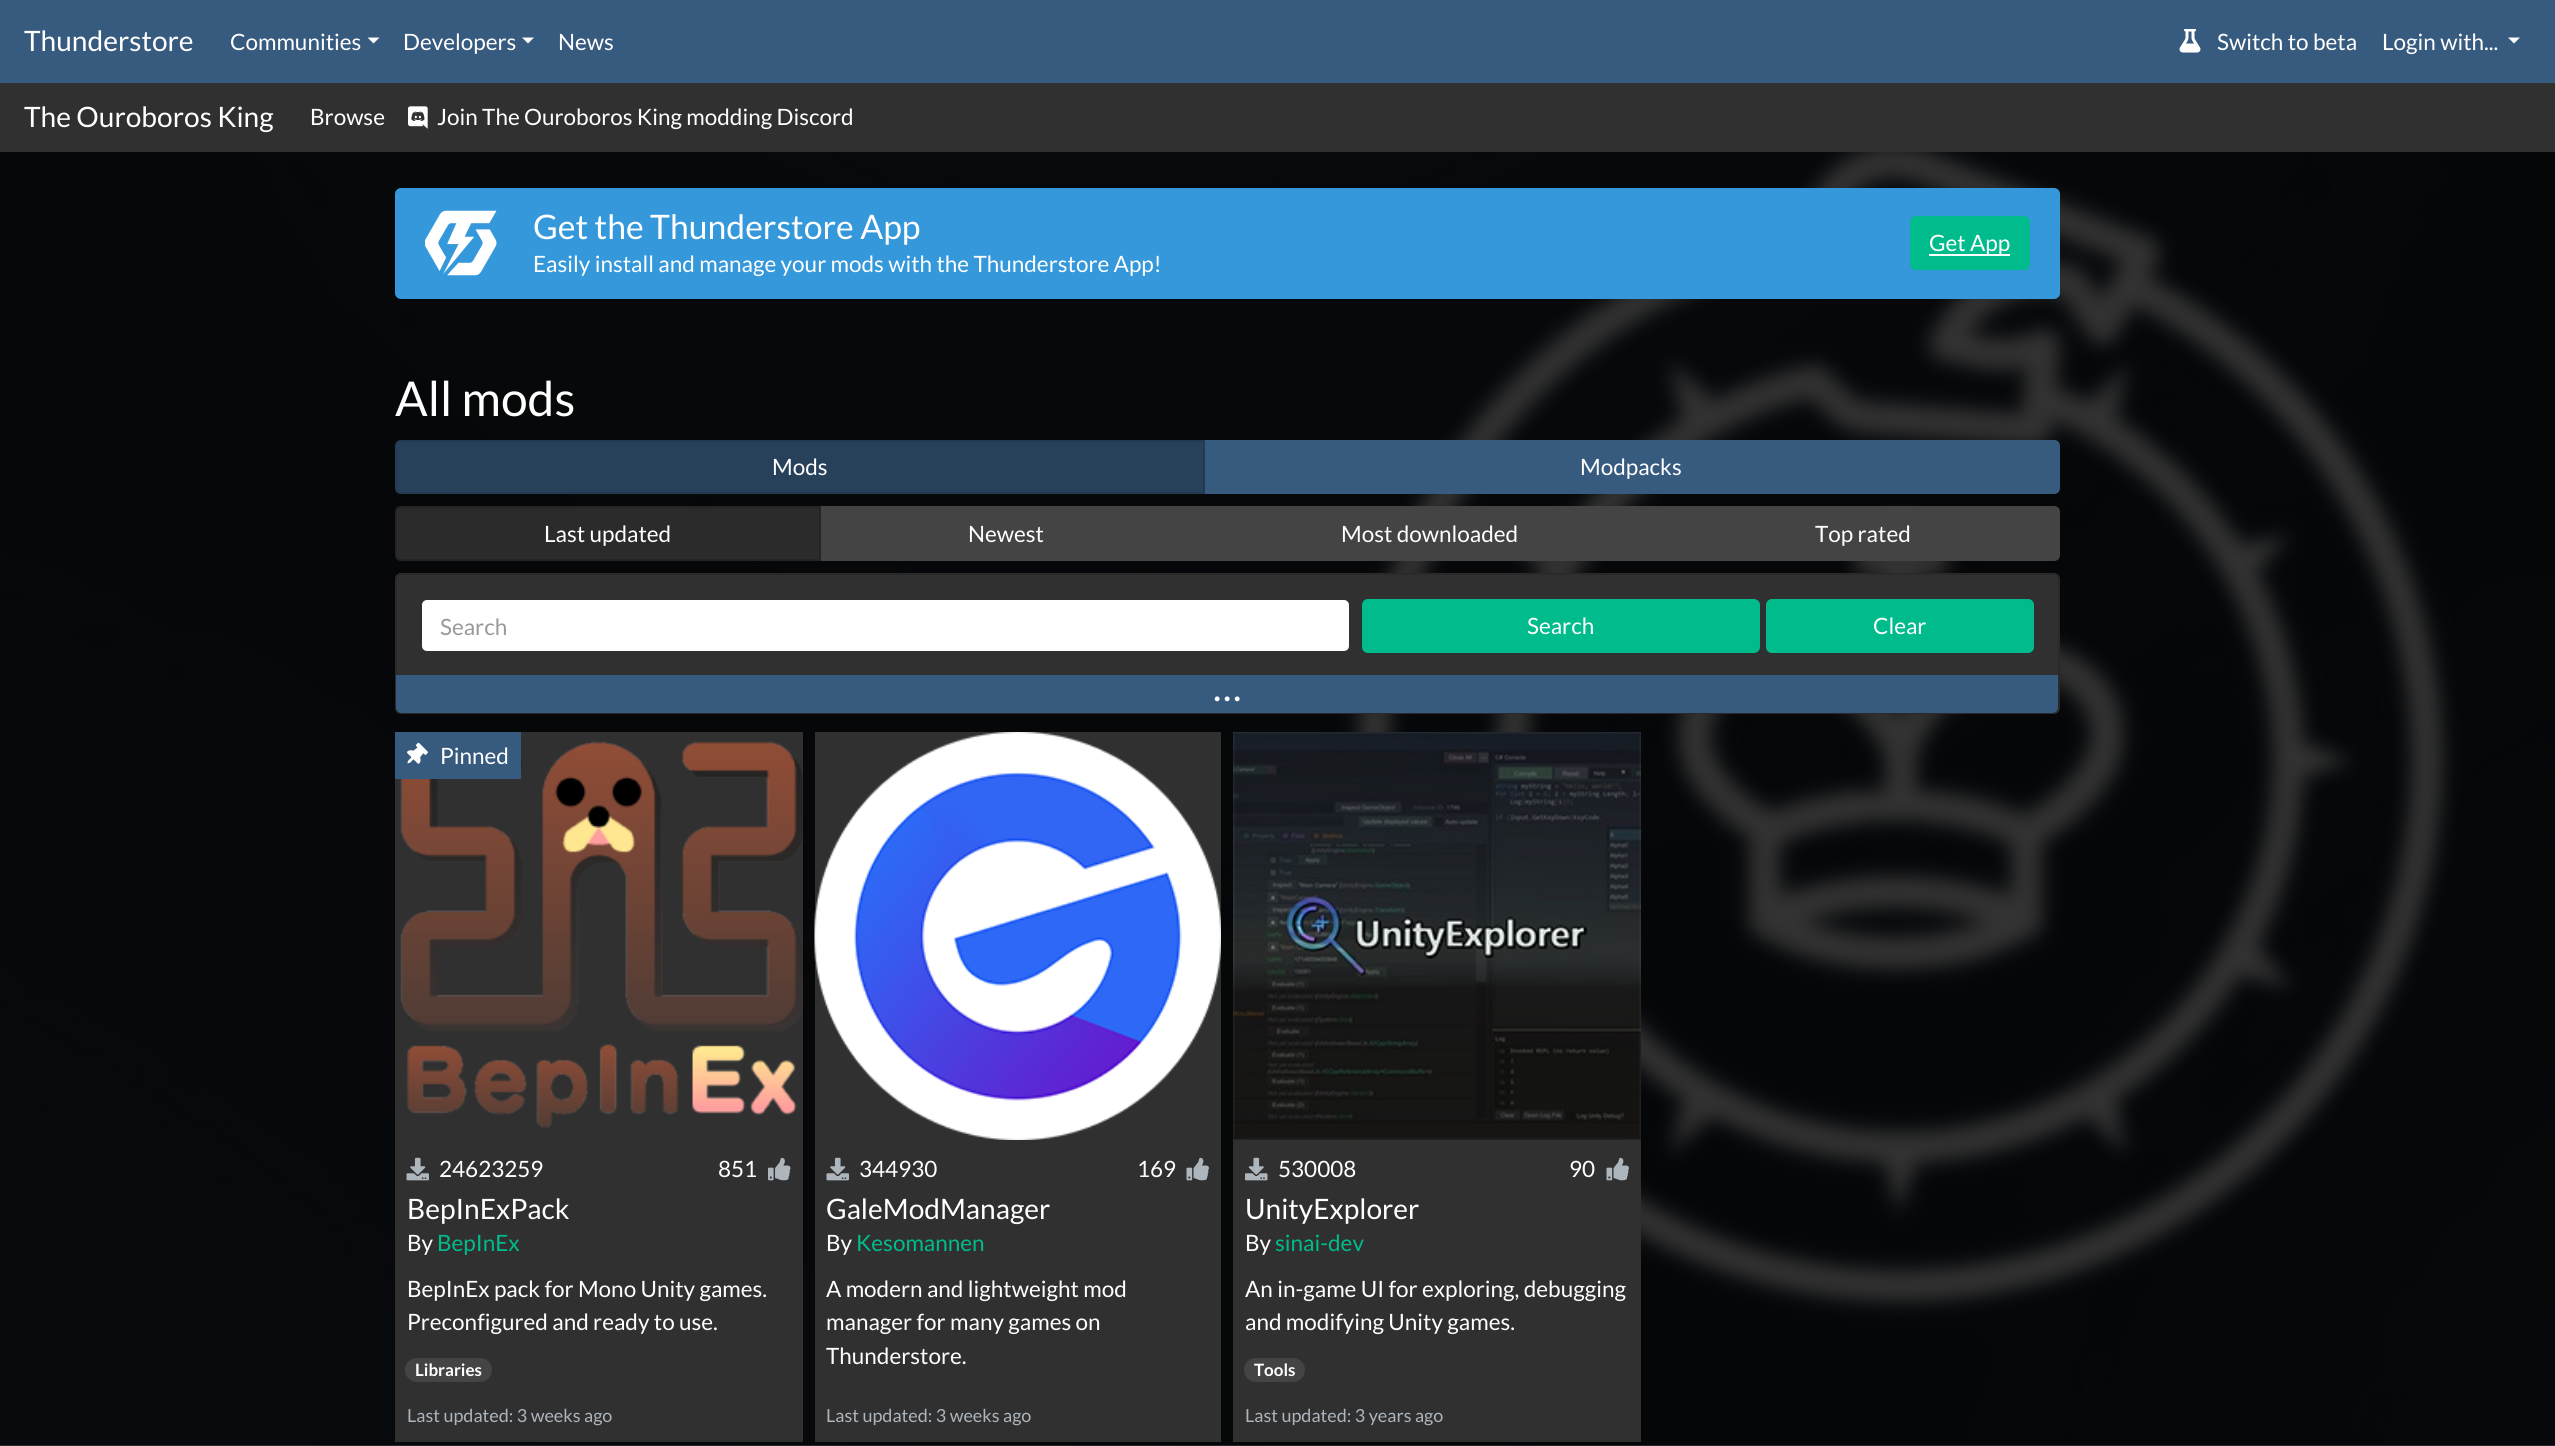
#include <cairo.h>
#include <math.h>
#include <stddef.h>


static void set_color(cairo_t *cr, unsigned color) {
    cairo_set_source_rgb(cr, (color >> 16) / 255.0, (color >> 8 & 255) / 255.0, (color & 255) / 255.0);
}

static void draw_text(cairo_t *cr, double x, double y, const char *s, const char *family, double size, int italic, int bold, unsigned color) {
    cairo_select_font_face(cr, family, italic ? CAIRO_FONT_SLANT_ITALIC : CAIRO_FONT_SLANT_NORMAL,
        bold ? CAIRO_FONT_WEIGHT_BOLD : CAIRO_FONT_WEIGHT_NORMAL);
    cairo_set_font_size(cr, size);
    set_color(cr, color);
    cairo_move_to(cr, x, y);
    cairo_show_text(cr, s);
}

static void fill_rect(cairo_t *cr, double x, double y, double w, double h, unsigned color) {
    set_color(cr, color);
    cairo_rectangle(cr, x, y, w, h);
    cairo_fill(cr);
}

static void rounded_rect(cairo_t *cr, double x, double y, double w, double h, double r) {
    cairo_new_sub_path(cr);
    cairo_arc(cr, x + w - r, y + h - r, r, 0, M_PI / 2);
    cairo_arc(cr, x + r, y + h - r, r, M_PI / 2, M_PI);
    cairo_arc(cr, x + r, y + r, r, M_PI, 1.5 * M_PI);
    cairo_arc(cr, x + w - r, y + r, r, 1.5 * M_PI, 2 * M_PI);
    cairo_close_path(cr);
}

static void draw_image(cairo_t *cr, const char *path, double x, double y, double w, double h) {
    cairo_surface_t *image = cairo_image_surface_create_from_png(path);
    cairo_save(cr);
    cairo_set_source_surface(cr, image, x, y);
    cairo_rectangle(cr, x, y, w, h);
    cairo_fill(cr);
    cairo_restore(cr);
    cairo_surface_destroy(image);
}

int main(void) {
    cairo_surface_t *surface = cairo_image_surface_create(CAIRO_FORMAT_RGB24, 2555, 1446);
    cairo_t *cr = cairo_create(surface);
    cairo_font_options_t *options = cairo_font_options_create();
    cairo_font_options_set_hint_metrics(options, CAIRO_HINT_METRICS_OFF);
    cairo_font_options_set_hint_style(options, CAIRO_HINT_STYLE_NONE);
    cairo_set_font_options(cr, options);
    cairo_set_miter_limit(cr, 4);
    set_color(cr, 0xFFFFFF);
    cairo_paint(cr);
    fill_rect(cr, 0, 0, 2555, 83, 0x375A7F);
    draw_text(cr, 24, 51, "Thunderstore", "Lato", 28.1, 0, 0, 0xFFFFFF);
    draw_text(cr, 230, 50, "Communities", "Lato", 22.5, 0, 0, 0xFFFFFF);
    cairo_new_path(cr);
    cairo_move_to(cr, 367.5, 37.5);
    cairo_line_to(cr, 379.5, 37.5);
    cairo_line_to(cr, 373.5, 43.5);
    cairo_close_path(cr);
    cairo_fill(cr);
    draw_text(cr, 403, 50, "Developers", "Lato", 22.5, 0, 0, 0xFFFFFF);
    cairo_new_path(cr);
    cairo_move_to(cr, 522, 37.5);
    cairo_line_to(cr, 534, 37.5);
    cairo_line_to(cr, 528, 43.5);
    cairo_close_path(cr);
    cairo_fill(cr);
    draw_text(cr, 558, 50, "News", "Lato", 22.5, 0, 0, 0xFFFFFF);
    draw_image(cr, "assets/img1.png", 2179, 29, 22, 24);
    draw_text(cr, 2217, 50, "Switch to beta", "Lato", 22.5, 0, 0, 0xFFFFFF);
    draw_text(cr, 2382, 50, "Login with...", "Lato", 22.5, 0, 0, 0xFFFFFF);
    cairo_new_path(cr);
    cairo_move_to(cr, 2508, 37.5);
    cairo_line_to(cr, 2520, 37.5);
    cairo_line_to(cr, 2514, 43.5);
    cairo_close_path(cr);
    cairo_fill(cr);
    fill_rect(cr, 0, 83, 2555, 69, 0x303030);
    draw_text(cr, 24, 127, "The Ouroboros King", "Lato", 28.1, 0, 0, 0xFFFFFF);
    draw_text(cr, 310, 125, "Browse", "Lato", 22.5, 0, 0, 0xFFFFFF);
    draw_image(cr, "assets/img2.png", 408, 106, 20, 23);
    draw_text(cr, 437, 125, "Join The Ouroboros King modding Discord", "Lato", 22.5, 0, 0, 0xFFFFFF);
    draw_image(cr, "assets/img3.png", 0, 152, 2555, 1294);
    set_color(cr, 0x3498DB);
    rounded_rect(cr, 395, 188, 1665, 111, 6);
    cairo_fill(cr);
    draw_image(cr, "assets/img4.png", 425, 210, 72, 66);
    draw_text(cr, 533, 239, "Get the Thunderstore App", "Lato", 33.75, 0, 0, 0xFFFFFF);
    draw_text(cr, 533, 272, "Easily install and manage your mods with the Thunderstore App!", "Lato", 22.5, 0, 0, 0xFFFFFF);
    set_color(cr, 0x00BC8C);
    rounded_rect(cr, 1911, 217, 118, 52, 5);
    cairo_fill_preserve(cr);
    cairo_stroke(cr);
    fill_rect(cr, 1929, 254, 81, 2, 0xFFFFFF);
    draw_text(cr, 1929, 251, "Get App", "Lato", 22.5, 0, 0, 0xFFFFFF);
    draw_text(cr, 395, 416, "All mods", "Lato", 48, 0, 0, 0xFFFFFF);
    set_color(cr, 0x375A7F);
    cairo_new_path(cr);
    cairo_move_to(cr, 1204, 441);
    cairo_line_to(cr, 2054, 441);
    cairo_curve_to(cr, 2057, 441, 2059, 443, 2059, 446);
    cairo_line_to(cr, 2059, 488);
    cairo_curve_to(cr, 2059, 491, 2057, 493, 2054, 493);
    cairo_line_to(cr, 1204, 493);
    cairo_close_path(cr);
    cairo_fill_preserve(cr);
    cairo_stroke(cr);
    set_color(cr, 0x28415B);
    cairo_new_path(cr);
    cairo_move_to(cr, 401, 441);
    cairo_line_to(cr, 1204, 441);
    cairo_line_to(cr, 1204, 493);
    cairo_line_to(cr, 401, 493);
    cairo_curve_to(cr, 398, 493, 396, 491, 396, 488);
    cairo_line_to(cr, 396, 446);
    cairo_curve_to(cr, 396, 443, 398, 441, 401, 441);
    cairo_close_path(cr);
    cairo_fill_preserve(cr);
    set_color(cr, 0x243A53);
    cairo_stroke(cr);
    draw_text(cr, 772, 475, "Mods", "Lato", 22.5, 0, 0, 0xFFFFFF);
    draw_text(cr, 1580, 475, "Modpacks", "Lato", 22.5, 0, 0, 0xFFFFFF);
    set_color(cr, 0x2B2B2B);
    cairo_new_path(cr);
    cairo_move_to(cr, 401, 507);
    cairo_line_to(cr, 820, 507);
    cairo_line_to(cr, 820, 560);
    cairo_line_to(cr, 401, 560);
    cairo_curve_to(cr, 398, 560, 396, 558, 396, 555);
    cairo_line_to(cr, 396, 512);
    cairo_curve_to(cr, 396, 509, 398, 507, 401, 507);
    cairo_close_path(cr);
    cairo_fill_preserve(cr);
    set_color(cr, 0x242424);
    cairo_stroke(cr);
    draw_text(cr, 544, 542, "Last updated", "Lato", 22.5, 0, 0, 0xFFFFFF);
    fill_rect(cr, 821, 506, 844, 55, 0x444444);
    draw_text(cr, 968, 542, "Newest", "Lato", 22.5, 0, 0, 0xFFFFFF);
    draw_text(cr, 1341, 542, "Most downloaded", "Lato", 22.5, 0, 0, 0xFFFFFF);
    set_color(cr, 0x444444);
    cairo_new_path(cr);
    cairo_move_to(cr, 1666, 507);
    cairo_line_to(cr, 2054, 507);
    cairo_curve_to(cr, 2057, 507, 2059, 509, 2059, 512);
    cairo_line_to(cr, 2059, 555);
    cairo_curve_to(cr, 2059, 558, 2057, 560, 2054, 560);
    cairo_line_to(cr, 1666, 560);
    cairo_close_path(cr);
    cairo_fill_preserve(cr);
    cairo_stroke(cr);
    draw_text(cr, 1815, 542, "Top rated", "Lato", 22.5, 0, 0, 0xFFFFFF);
    set_color(cr, 0x303030);
    rounded_rect(cr, 395, 573, 1665, 141, 6);
    cairo_fill(cr);
    rounded_rect(cr, 396, 574, 1663, 139, 5);
    cairo_set_source_rgba(cr, 0, 0, 0, 0.12);
    cairo_stroke(cr);
    set_color(cr, 0xFFFFFF);
    rounded_rect(cr, 422, 600, 927, 51, 5);
    cairo_fill(cr);
    draw_text(cr, 440, 635, "Search", "Lato", 22.5, 0, 0, 0x999999);
    set_color(cr, 0x00BC8C);
    rounded_rect(cr, 1363, 600, 396, 52, 5);
    cairo_fill_preserve(cr);
    cairo_stroke(cr);
    draw_text(cr, 1527, 634, "Search", "Lato", 22.5, 0, 0, 0xFFFFFF);
    set_color(cr, 0x00BC8C);
    rounded_rect(cr, 1767, 600, 266, 52, 5);
    cairo_fill_preserve(cr);
    cairo_stroke(cr);
    draw_text(cr, 1873, 634, "Clear", "Lato", 22.5, 0, 0, 0xFFFFFF);
    set_color(cr, 0x375A7F);
    cairo_new_path(cr);
    cairo_move_to(cr, 396, 675);
    cairo_line_to(cr, 2058, 675);
    cairo_line_to(cr, 2058, 707);
    cairo_curve_to(cr, 2058, 710.5, 2055.5, 713, 2052, 713);
    cairo_line_to(cr, 402, 713);
    cairo_curve_to(cr, 398.5, 713, 396, 710.5, 396, 707);
    cairo_close_path(cr);
    cairo_fill(cr);
    draw_text(cr, 1213, 701, "…", "Lato", 39, 0, 0, 0xFFFFFF);
    fill_rect(cr, 395, 732, 408, 710, 0x303030);
    draw_image(cr, "assets/img5.png", 400, 741, 403, 387);
    fill_rect(cr, 395, 732, 126, 47, 0x375A7F);
    draw_image(cr, "assets/img6.png", 407, 742, 21, 22);
    draw_text(cr, 440, 764, "Pinned", "Lato", 22.5, 0, 0, 0xFFFFFF);
    draw_image(cr, "assets/img7.png", 406, 1157, 23, 24);
    draw_text(cr, 439, 1177, "24623259", "Lato", 22.5, 0, 0, 0xFFFFFF);
    draw_text(cr, 718, 1177, "851", "Lato", 22.5, 0, 0, 0xFFFFFF);
    draw_image(cr, "assets/img8.png", 768, 1157, 23, 24);
    draw_text(cr, 407, 1219, "BepInExPack", "Lato", 28.1, 0, 0, 0xFFFFFF);
    draw_text(cr, 407, 1251, "By", "Lato", 22.5, 0, 0, 0xFFFFFF);
    draw_text(cr, 437, 1251, "BepInEx", "Lato", 22.5, 0, 0, 0x00BC8C);
    draw_text(cr, 407, 1297, "BepInEx pack for Mono Unity games.", "Lato", 22.5, 0, 0, 0xFFFFFF);
    draw_text(cr, 407, 1330, "Preconfigured and ready to use.", "Lato", 22.5, 0, 0, 0xFFFFFF);
    set_color(cr, 0x444444);
    rounded_rect(cr, 405, 1358, 87, 24, 12);
    cairo_fill(cr);
    draw_text(cr, 415, 1376, "Libraries", "Lato", 17, 0, 1, 0xFFFFFF);
    draw_text(cr, 407, 1422, "Last updated: 3 weeks ago", "Lato", 18, 0, 0, 0xADB5BD);
    fill_rect(cr, 815, 732, 406, 710, 0x303030);
    draw_image(cr, "assets/img9.png", 814, 732, 407, 408);
    draw_image(cr, "assets/img7.png", 826, 1157, 23, 24);
    draw_text(cr, 859, 1177, "344930", "Lato", 22.5, 0, 0, 0xFFFFFF);
    draw_text(cr, 1137, 1177, "169", "Lato", 22.5, 0, 0, 0xFFFFFF);
    draw_image(cr, "assets/img10.png", 1186, 1157, 23, 24);
    draw_text(cr, 826, 1219, "GaleModManager", "Lato", 28.1, 0, 0, 0xFFFFFF);
    draw_text(cr, 826, 1251, "By", "Lato", 22.5, 0, 0, 0xFFFFFF);
    draw_text(cr, 856, 1251, "Kesomannen", "Lato", 22.5, 0, 0, 0x00BC8C);
    draw_text(cr, 826, 1297, "A modern and lightweight mod", "Lato", 22.5, 0, 0, 0xFFFFFF);
    draw_text(cr, 826, 1330, "manager for many games on", "Lato", 22.5, 0, 0, 0xFFFFFF);
    draw_text(cr, 826, 1364, "Thunderstore.", "Lato", 22.5, 0, 0, 0xFFFFFF);
    draw_text(cr, 826, 1422, "Last updated: 3 weeks ago", "Lato", 18, 0, 0, 0xADB5BD);
    draw_image(cr, "assets/img11.png", 1233, 732, 408, 408);
    fill_rect(cr, 1233, 1140, 408, 302, 0x303030);
    draw_image(cr, "assets/img12.png", 1245, 1157, 23, 24);
    draw_text(cr, 1278, 1177, "530008", "Lato", 22.5, 0, 0, 0xFFFFFF);
    draw_text(cr, 1569, 1177, "90", "Lato", 22.5, 0, 0, 0xFFFFFF);
    draw_image(cr, "assets/img10.png", 1606, 1157, 23, 24);
    draw_text(cr, 1245, 1219, "UnityExplorer", "Lato", 28.1, 0, 0, 0xFFFFFF);
    draw_text(cr, 1245, 1251, "By", "Lato", 22.5, 0, 0, 0xFFFFFF);
    draw_text(cr, 1275, 1251, "sinai-dev", "Lato", 22.5, 0, 0, 0x00BC8C);
    draw_text(cr, 1245, 1297, "An in-game UI for exploring, debugging", "Lato", 22.5, 0, 0, 0xFFFFFF);
    draw_text(cr, 1245, 1330, "and modifying Unity games.", "Lato", 22.5, 0, 0, 0xFFFFFF);
    set_color(cr, 0x444444);
    rounded_rect(cr, 1244, 1358, 61, 24, 12);
    cairo_fill(cr);
    draw_text(cr, 1254, 1376, "Tools", "Lato", 17, 0, 1, 0xFFFFFF);
    draw_text(cr, 1245, 1422, "Last updated: 3 years ago", "Lato", 18, 0, 0, 0xADB5BD);
    cairo_surface_write_to_png(surface, "output.png");
    cairo_font_options_destroy(options);
    cairo_destroy(cr);
    cairo_surface_destroy(surface);
    return 0;
}
